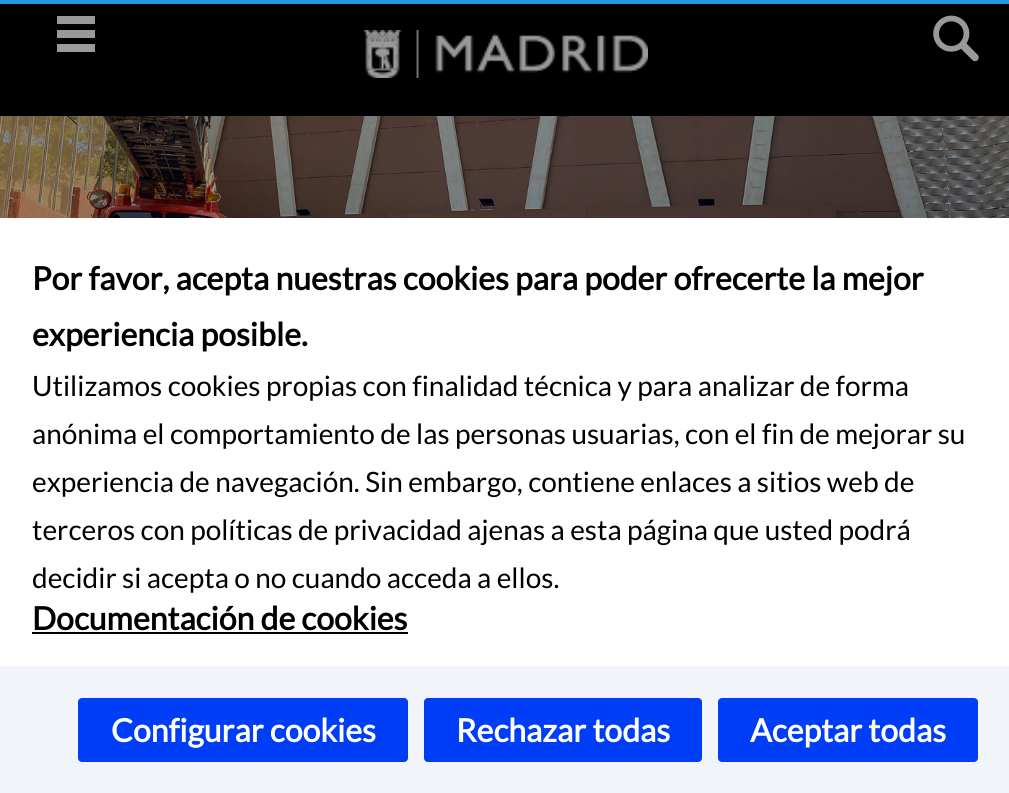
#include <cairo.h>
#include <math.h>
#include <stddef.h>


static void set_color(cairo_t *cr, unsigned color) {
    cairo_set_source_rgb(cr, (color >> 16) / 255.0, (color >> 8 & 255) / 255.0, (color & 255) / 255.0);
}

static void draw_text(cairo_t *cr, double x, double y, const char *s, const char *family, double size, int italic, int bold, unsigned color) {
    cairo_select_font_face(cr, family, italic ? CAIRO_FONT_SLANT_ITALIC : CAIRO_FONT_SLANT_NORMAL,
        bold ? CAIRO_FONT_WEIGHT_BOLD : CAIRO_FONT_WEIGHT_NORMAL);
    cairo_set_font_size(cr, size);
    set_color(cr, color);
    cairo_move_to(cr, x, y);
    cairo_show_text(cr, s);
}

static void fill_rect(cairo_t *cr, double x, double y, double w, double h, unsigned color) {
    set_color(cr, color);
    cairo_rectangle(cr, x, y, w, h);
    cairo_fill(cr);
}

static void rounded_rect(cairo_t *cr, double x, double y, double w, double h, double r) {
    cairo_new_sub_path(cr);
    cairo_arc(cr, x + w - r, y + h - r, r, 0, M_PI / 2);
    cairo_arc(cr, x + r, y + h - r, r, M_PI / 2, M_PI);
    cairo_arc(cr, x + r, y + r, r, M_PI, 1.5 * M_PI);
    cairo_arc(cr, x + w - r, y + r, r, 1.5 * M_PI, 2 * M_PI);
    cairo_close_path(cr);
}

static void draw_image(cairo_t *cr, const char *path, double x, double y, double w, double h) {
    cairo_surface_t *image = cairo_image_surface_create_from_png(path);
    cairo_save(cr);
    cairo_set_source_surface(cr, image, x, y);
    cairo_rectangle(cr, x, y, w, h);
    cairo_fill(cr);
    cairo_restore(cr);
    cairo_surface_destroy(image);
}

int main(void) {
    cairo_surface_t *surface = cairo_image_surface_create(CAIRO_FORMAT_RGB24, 1009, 793);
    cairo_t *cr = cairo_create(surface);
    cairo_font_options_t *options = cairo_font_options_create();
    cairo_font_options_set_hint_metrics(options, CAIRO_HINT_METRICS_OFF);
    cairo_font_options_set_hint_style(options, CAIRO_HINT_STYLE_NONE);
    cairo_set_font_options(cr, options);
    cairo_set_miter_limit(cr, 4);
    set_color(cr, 0x000000);
    cairo_paint(cr);
    fill_rect(cr, 0, 0, 1009, 4, 0x2299DD);
    set_color(cr, 0x999999);
    cairo_new_path(cr);
    cairo_move_to(cr, 57, 16);
    cairo_line_to(cr, 57, 24);
    cairo_line_to(cr, 95, 24);
    cairo_line_to(cr, 95, 16);
    cairo_close_path(cr);
    cairo_move_to(cr, 57, 38);
    cairo_line_to(cr, 95, 38);
    cairo_line_to(cr, 95, 30);
    cairo_line_to(cr, 57, 30);
    cairo_close_path(cr);
    cairo_move_to(cr, 57, 52);
    cairo_line_to(cr, 95, 52);
    cairo_line_to(cr, 95, 44);
    cairo_line_to(cr, 57, 44);
    cairo_close_path(cr);
    cairo_fill(cr);
    draw_image(cr, "assets/img1.png", 364, 30, 284, 48);
    draw_image(cr, "assets/img2.png", 933, 15, 46, 47);
    draw_image(cr, "assets/img3.png", 0, 116, 1009, 102);
    fill_rect(cr, 0, 218, 1009, 448, 0xFFFFFF);
    draw_text(cr, 32, 290, "Por favor, acepta nuestras cookies para poder ofrecerte la mejor", "Lato", 32, 0, 1, 0x000000);
    draw_text(cr, 32, 346, "experiencia posible.", "Lato", 32, 0, 1, 0x000000);
    draw_text(cr, 32, 396, "Utilizamos cookies propias con finalidad técnica y para analizar de forma", "Lato", 28, 0, 0, 0x000000);
    draw_text(cr, 32, 444, "anónima el comportamiento de las personas usuarias, con el fin de mejorar su", "Lato", 28, 0, 0, 0x000000);
    draw_text(cr, 32, 492, "experiencia de navegación. Sin embargo, contiene enlaces a sitios web de", "Lato", 28, 0, 0, 0x000000);
    draw_text(cr, 32, 540, "terceros con políticas de privacidad ajenas a esta página que usted podrá", "Lato", 28, 0, 0, 0x000000);
    draw_text(cr, 32, 588, "decidir si acepta o no cuando acceda a ellos.", "Lato", 28, 0, 0, 0x000000);
    draw_text(cr, 32, 630, "Documentación de cookies", "Lato", 32, 0, 1, 0x000000);
    fill_rect(cr, 32, 632, 376, 2, 0x000000);
    fill_rect(cr, 0, 666, 1009, 127, 0xF1F5F9);
    set_color(cr, 0x003DF6);
    rounded_rect(cr, 78, 698, 330, 64, 4);
    cairo_fill(cr);
    draw_text(cr, 111, 742, "Configurar cookies", "Lato", 32, 0, 1, 0xFFFFFF);
    set_color(cr, 0x003DF6);
    rounded_rect(cr, 424, 698, 278, 64, 4);
    cairo_fill(cr);
    draw_text(cr, 456, 742, "Rechazar todas", "Lato", 32, 0, 1, 0xFFFFFF);
    set_color(cr, 0x003DF6);
    rounded_rect(cr, 718, 698, 260, 64, 4);
    cairo_fill(cr);
    draw_text(cr, 750, 742, "Aceptar todas", "Lato", 32, 0, 1, 0xFFFFFF);
    cairo_surface_write_to_png(surface, "output.png");
    cairo_font_options_destroy(options);
    cairo_destroy(cr);
    cairo_surface_destroy(surface);
    return 0;
}
